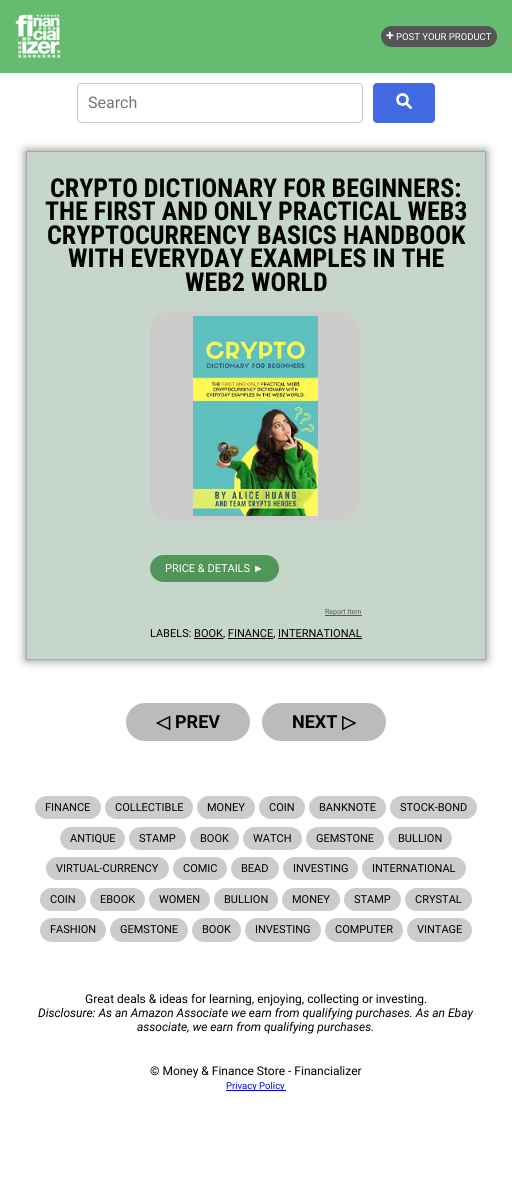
#include <cairo.h>
#include <math.h>
#include <stddef.h>


static void set_color(cairo_t *cr, unsigned color) {
    cairo_set_source_rgb(cr, (color >> 16) / 255.0, (color >> 8 & 255) / 255.0, (color & 255) / 255.0);
}

static void draw_text(cairo_t *cr, double x, double y, const char *s, const char *family, double size, int italic, int bold, unsigned color) {
    cairo_select_font_face(cr, family, italic ? CAIRO_FONT_SLANT_ITALIC : CAIRO_FONT_SLANT_NORMAL,
        bold ? CAIRO_FONT_WEIGHT_BOLD : CAIRO_FONT_WEIGHT_NORMAL);
    cairo_set_font_size(cr, size);
    set_color(cr, color);
    cairo_move_to(cr, x, y);
    cairo_show_text(cr, s);
}

static void fill_rect(cairo_t *cr, double x, double y, double w, double h, unsigned color) {
    set_color(cr, color);
    cairo_rectangle(cr, x, y, w, h);
    cairo_fill(cr);
}

static void rounded_rect(cairo_t *cr, double x, double y, double w, double h, double r) {
    cairo_new_sub_path(cr);
    cairo_arc(cr, x + w - r, y + h - r, r, 0, M_PI / 2);
    cairo_arc(cr, x + r, y + h - r, r, M_PI / 2, M_PI);
    cairo_arc(cr, x + r, y + r, r, M_PI, 1.5 * M_PI);
    cairo_arc(cr, x + w - r, y + r, r, 1.5 * M_PI, 2 * M_PI);
    cairo_close_path(cr);
}

static void draw_shadow(cairo_t *cr, double x, double y, double w, double h, double r, double blur, double alpha) {
    cairo_push_group_with_content(cr, CAIRO_CONTENT_ALPHA);
    cairo_set_operator(cr, CAIRO_OPERATOR_SOURCE);
    for (int i = 15; i >= -15 && fmin(w, h) + blur * i / 3 > 0; i -= 2) {
        double e = blur * i / 6;
        cairo_set_source_rgba(cr, 0, 0, 0, alpha * erfc((i - 1) / 8.5) / 2);
        rounded_rect(cr, x - e, y - e, w + 2 * e, h + 2 * e, fmax(0, fmin(r + e + blur * .6, fmin(w, h) / 2 + e)));
        cairo_fill(cr);
    }
    cairo_pattern_t *soft = cairo_pop_group(cr);
    cairo_mask(cr, soft);
    cairo_pattern_destroy(soft);
}

static void draw_image(cairo_t *cr, const char *path, double x, double y, double w, double h) {
    cairo_surface_t *image = cairo_image_surface_create_from_png(path);
    cairo_save(cr);
    cairo_set_source_surface(cr, image, x, y);
    cairo_rectangle(cr, x, y, w, h);
    cairo_fill(cr);
    cairo_restore(cr);
    cairo_surface_destroy(image);
}

int main(void) {
    cairo_surface_t *surface = cairo_image_surface_create(CAIRO_FORMAT_RGB24, 512, 1179);
    cairo_t *cr = cairo_create(surface);
    cairo_font_options_t *options = cairo_font_options_create();
    cairo_font_options_set_hint_metrics(options, CAIRO_HINT_METRICS_OFF);
    cairo_font_options_set_hint_style(options, CAIRO_HINT_STYLE_NONE);
    cairo_set_font_options(cr, options);
    cairo_set_miter_limit(cr, 4);
    set_color(cr, 0xFFFFFF);
    cairo_paint(cr);
    fill_rect(cr, 0, 0, 512, 73, 0x65BB70);
    draw_image(cr, "assets/img1.png", 15, 13, 46, 45);
    set_color(cr, 0x555555);
    rounded_rect(cr, 381, 26, 116, 21, 10.5);
    cairo_fill(cr);
    draw_text(cr, 386, 40, "+", "Roboto", 14, 0, 1, 0xFFFFFF);
    draw_text(cr, 396, 40, "POST YOUR PRODUCT", "Roboto", 9.5, 0, 0, 0xFFFFFF);
    rounded_rect(cr, 77.5, 83.5, 285, 39, 3.5);
    set_color(cr, 0xCCCCCC);
    cairo_set_line_width(cr, 1);
    cairo_stroke(cr);
    draw_text(cr, 88, 108, "Search", "Roboto", 16, 0, 0, 0x757575);
    set_color(cr, 0x4169E1);
    rounded_rect(cr, 373, 83, 62, 40, 4);
    cairo_fill(cr);
    cairo_arc(cr, 402.5, 99.5, 5, 0, 2 * M_PI);
    set_color(cr, 0xFFFFFF);
    cairo_set_line_width(cr, 2.6);
    cairo_stroke(cr);
    cairo_new_path(cr);
    cairo_move_to(cr, 405.5, 102.5);
    cairo_line_to(cr, 411.5, 108.5);
    cairo_stroke(cr);
    set_color(cr, 0x808080);
    draw_shadow(cr, 26, 151, 460, 509, 0, 5, 1);
    set_color(cr, 0xC7D6CA);
    cairo_rectangle(cr, 26.5, 151.5, 459, 508);
    cairo_fill_preserve(cr);
    set_color(cr, 0xAAAAAA);
    cairo_set_line_width(cr, 1);
    cairo_stroke(cr);
    draw_text(cr, 50, 197, "CRYPTO DICTIONARY FOR BEGINNERS:", "Roboto Condensed", 26, 0, 1, 0x000000);
    draw_text(cr, 45, 220, "THE FIRST AND ONLY PRACTICAL WEB3", "Roboto Condensed", 26, 0, 1, 0x000000);
    draw_text(cr, 47, 244, "CRYPTOCURRENCY BASICS HANDBOOK", "Roboto Condensed", 26, 0, 1, 0x000000);
    draw_text(cr, 68, 267, "WITH EVERYDAY EXAMPLES IN THE", "Roboto Condensed", 26, 0, 1, 0x000000);
    draw_text(cr, 185, 291, "WEB2 WORLD", "Roboto Condensed", 26, 0, 1, 0x000000);
    set_color(cr, 0xCCCCCC);
    rounded_rect(cr, 150, 311, 210, 210, 20);
    cairo_fill(cr);
    draw_image(cr, "assets/img2.png", 193, 316, 125, 200);
    set_color(cr, 0x509659);
    rounded_rect(cr, 150, 555, 129, 27, 13.5);
    cairo_fill(cr);
    draw_text(cr, 165, 572, "PRICE & DETAILS", "Roboto", 11, 0, 0, 0xFFFFFF);
    draw_text(cr, 253, 572, "►", "Liberation Sans", 11, 0, 0, 0xFFFFFF);
    fill_rect(cr, 325, 615, 37, 1, 0x555555);
    draw_text(cr, 325, 614, "Report Item", "Roboto", 7, 0, 0, 0x555555);
    draw_text(cr, 150, 637, "LABELS: BOOK, FINANCE, INTERNATIONAL", "Roboto", 11, 0, 0, 0x000000);
    fill_rect(cr, 194, 638, 29, 1, 0x000000);
    fill_rect(cr, 228, 638, 45, 1, 0x000000);
    fill_rect(cr, 278, 638, 84, 1, 0x000000);
    set_color(cr, 0xBBBBBB);
    rounded_rect(cr, 126, 703, 124, 38, 19);
    cairo_fill(cr);
    draw_text(cr, 156, 728, "◁", "DejaVu Sans", 18, 0, 1, 0x000000);
    draw_text(cr, 175, 728, "PREV", "Roboto", 18, 0, 1, 0x000000);
    set_color(cr, 0xBBBBBB);
    rounded_rect(cr, 262, 703, 124, 38, 19);
    cairo_fill(cr);
    draw_text(cr, 292, 728, "NEXT", "Roboto", 18, 0, 1, 0x000000);
    draw_text(cr, 342, 728, "▷", "DejaVu Sans", 18, 0, 1, 0x000000);
    set_color(cr, 0xCCCCCC);
    rounded_rect(cr, 35, 796, 66, 23, 11.5);
    cairo_fill(cr);
    draw_text(cr, 45, 811, "FINANCE", "Roboto", 11, 0, 0, 0x000000);
    set_color(cr, 0xCCCCCC);
    rounded_rect(cr, 105, 796, 88, 23, 11.5);
    cairo_fill(cr);
    draw_text(cr, 115, 811, "COLLECTIBLE", "Roboto", 11, 0, 0, 0x000000);
    set_color(cr, 0xCCCCCC);
    rounded_rect(cr, 197, 796, 58, 23, 11.5);
    cairo_fill(cr);
    draw_text(cr, 207, 811, "MONEY", "Roboto", 11, 0, 0, 0x000000);
    set_color(cr, 0xCCCCCC);
    rounded_rect(cr, 259, 796, 46, 23, 11.5);
    cairo_fill(cr);
    draw_text(cr, 269, 811, "COIN", "Roboto", 11, 0, 0, 0x000000);
    set_color(cr, 0xCCCCCC);
    rounded_rect(cr, 309, 796, 77, 23, 11.5);
    cairo_fill(cr);
    draw_text(cr, 319, 811, "BANKNOTE", "Roboto", 11, 0, 0, 0x000000);
    set_color(cr, 0xCCCCCC);
    rounded_rect(cr, 390, 796, 87, 23, 11.5);
    cairo_fill(cr);
    draw_text(cr, 400, 811, "STOCK-BOND", "Roboto", 11, 0, 0, 0x000000);
    set_color(cr, 0xCCCCCC);
    rounded_rect(cr, 60, 827, 65, 23, 11.5);
    cairo_fill(cr);
    draw_text(cr, 70, 842, "ANTIQUE", "Roboto", 11, 0, 0, 0x000000);
    set_color(cr, 0xCCCCCC);
    rounded_rect(cr, 129, 827, 57, 23, 11.5);
    cairo_fill(cr);
    draw_text(cr, 139, 842, "STAMP", "Roboto", 11, 0, 0, 0x000000);
    set_color(cr, 0xCCCCCC);
    rounded_rect(cr, 190, 827, 49, 23, 11.5);
    cairo_fill(cr);
    draw_text(cr, 200, 842, "BOOK", "Roboto", 11, 0, 0, 0x000000);
    set_color(cr, 0xCCCCCC);
    rounded_rect(cr, 243, 827, 59, 23, 11.5);
    cairo_fill(cr);
    draw_text(cr, 253, 842, "WATCH", "Roboto", 11, 0, 0, 0x000000);
    set_color(cr, 0xCCCCCC);
    rounded_rect(cr, 306, 827, 78, 23, 11.5);
    cairo_fill(cr);
    draw_text(cr, 316, 842, "GEMSTONE", "Roboto", 11, 0, 0, 0x000000);
    set_color(cr, 0xCCCCCC);
    rounded_rect(cr, 388, 827, 64, 23, 11.5);
    cairo_fill(cr);
    draw_text(cr, 398, 842, "BULLION", "Roboto", 11, 0, 0, 0x000000);
    set_color(cr, 0xCCCCCC);
    rounded_rect(cr, 46, 857, 123, 23, 11.5);
    cairo_fill(cr);
    draw_text(cr, 56, 872, "VIRTUAL-CURRENCY", "Roboto", 11, 0, 0, 0x000000);
    set_color(cr, 0xCCCCCC);
    rounded_rect(cr, 173, 857, 54, 23, 11.5);
    cairo_fill(cr);
    draw_text(cr, 183, 872, "COMIC", "Roboto", 11, 0, 0, 0x000000);
    set_color(cr, 0xCCCCCC);
    rounded_rect(cr, 231, 857, 48, 23, 11.5);
    cairo_fill(cr);
    draw_text(cr, 241, 872, "BEAD", "Roboto", 11, 0, 0, 0x000000);
    set_color(cr, 0xCCCCCC);
    rounded_rect(cr, 283, 857, 75, 23, 11.5);
    cairo_fill(cr);
    draw_text(cr, 293, 872, "INVESTING", "Roboto", 11, 0, 0, 0x000000);
    set_color(cr, 0xCCCCCC);
    rounded_rect(cr, 362, 857, 104, 23, 11.5);
    cairo_fill(cr);
    draw_text(cr, 372, 872, "INTERNATIONAL", "Roboto", 11, 0, 0, 0x000000);
    set_color(cr, 0xCCCCCC);
    rounded_rect(cr, 40, 888, 46, 23, 11.5);
    cairo_fill(cr);
    draw_text(cr, 50, 903, "COIN", "Roboto", 11, 0, 0, 0x000000);
    set_color(cr, 0xCCCCCC);
    rounded_rect(cr, 90, 888, 55, 23, 11.5);
    cairo_fill(cr);
    draw_text(cr, 100, 903, "EBOOK", "Roboto", 11, 0, 0, 0x000000);
    set_color(cr, 0xCCCCCC);
    rounded_rect(cr, 149, 888, 61, 23, 11.5);
    cairo_fill(cr);
    draw_text(cr, 159, 903, "WOMEN", "Roboto", 11, 0, 0, 0x000000);
    set_color(cr, 0xCCCCCC);
    rounded_rect(cr, 214, 888, 64, 23, 11.5);
    cairo_fill(cr);
    draw_text(cr, 224, 903, "BULLION", "Roboto", 11, 0, 0, 0x000000);
    set_color(cr, 0xCCCCCC);
    rounded_rect(cr, 282, 888, 58, 23, 11.5);
    cairo_fill(cr);
    draw_text(cr, 292, 903, "MONEY", "Roboto", 11, 0, 0, 0x000000);
    set_color(cr, 0xCCCCCC);
    rounded_rect(cr, 344, 888, 57, 23, 11.5);
    cairo_fill(cr);
    draw_text(cr, 354, 903, "STAMP", "Roboto", 11, 0, 0, 0x000000);
    set_color(cr, 0xCCCCCC);
    rounded_rect(cr, 405, 888, 67, 23, 11.5);
    cairo_fill(cr);
    draw_text(cr, 415, 903, "CRYSTAL", "Roboto", 11, 0, 0, 0x000000);
    set_color(cr, 0xCCCCCC);
    rounded_rect(cr, 40, 918, 66, 24, 12);
    cairo_fill(cr);
    draw_text(cr, 50, 933, "FASHION", "Roboto", 11, 0, 0, 0x000000);
    set_color(cr, 0xCCCCCC);
    rounded_rect(cr, 110, 918, 78, 24, 12);
    cairo_fill(cr);
    draw_text(cr, 120, 933, "GEMSTONE", "Roboto", 11, 0, 0, 0x000000);
    set_color(cr, 0xCCCCCC);
    rounded_rect(cr, 192, 918, 49, 24, 12);
    cairo_fill(cr);
    draw_text(cr, 202, 933, "BOOK", "Roboto", 11, 0, 0, 0x000000);
    set_color(cr, 0xCCCCCC);
    rounded_rect(cr, 245, 918, 76, 24, 12);
    cairo_fill(cr);
    draw_text(cr, 255, 933, "INVESTING", "Roboto", 11, 0, 0, 0x000000);
    set_color(cr, 0xCCCCCC);
    rounded_rect(cr, 325, 918, 78, 24, 12);
    cairo_fill(cr);
    draw_text(cr, 335, 933, "COMPUTER", "Roboto", 11, 0, 0, 0x000000);
    set_color(cr, 0xCCCCCC);
    rounded_rect(cr, 407, 918, 65, 24, 12);
    cairo_fill(cr);
    draw_text(cr, 417, 933, "VINTAGE", "Roboto", 11, 0, 0, 0x000000);
    draw_text(cr, 85, 1003, "Great deals & ideas for learning, enjoying, collecting or investing.", "Roboto", 12, 0, 0, 0x000000);
    draw_text(cr, 38, 1017, "Disclosure: As an Amazon Associate we earn from qualifying purchases. As an Ebay", "Roboto", 12, 1, 0, 0x000000);
    draw_text(cr, 137, 1031, "associate, we earn from qualifying purchases.", "Roboto", 12, 1, 0, 0x000000);
    draw_text(cr, 150, 1075, "© Money & Finance Store - Financializer", "Roboto", 12, 0, 0, 0x000000);
    fill_rect(cr, 226, 1090, 60, 1, 0x0000EE);
    draw_text(cr, 226, 1089, "Privacy Policy", "Roboto", 9.5, 0, 0, 0x0000EE);
    cairo_surface_write_to_png(surface, "output.png");
    cairo_font_options_destroy(options);
    cairo_destroy(cr);
    cairo_surface_destroy(surface);
    return 0;
}
